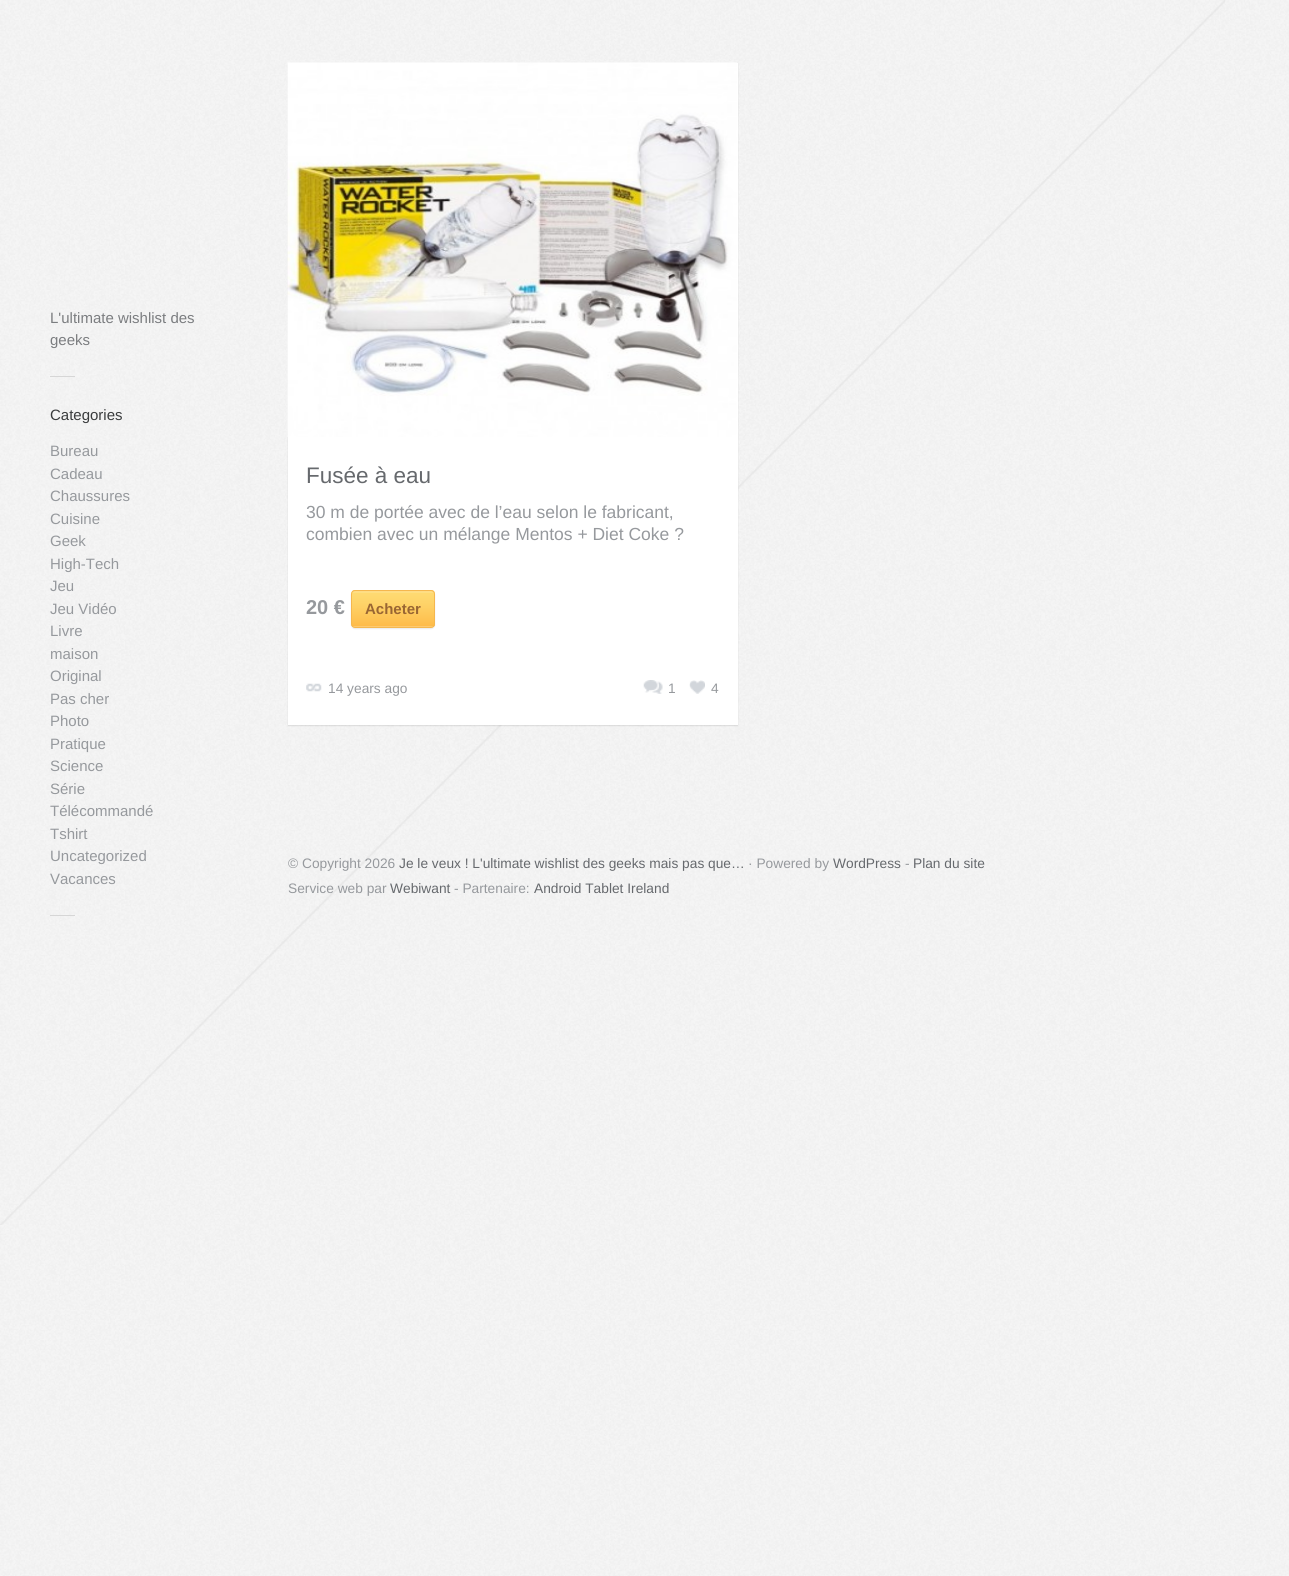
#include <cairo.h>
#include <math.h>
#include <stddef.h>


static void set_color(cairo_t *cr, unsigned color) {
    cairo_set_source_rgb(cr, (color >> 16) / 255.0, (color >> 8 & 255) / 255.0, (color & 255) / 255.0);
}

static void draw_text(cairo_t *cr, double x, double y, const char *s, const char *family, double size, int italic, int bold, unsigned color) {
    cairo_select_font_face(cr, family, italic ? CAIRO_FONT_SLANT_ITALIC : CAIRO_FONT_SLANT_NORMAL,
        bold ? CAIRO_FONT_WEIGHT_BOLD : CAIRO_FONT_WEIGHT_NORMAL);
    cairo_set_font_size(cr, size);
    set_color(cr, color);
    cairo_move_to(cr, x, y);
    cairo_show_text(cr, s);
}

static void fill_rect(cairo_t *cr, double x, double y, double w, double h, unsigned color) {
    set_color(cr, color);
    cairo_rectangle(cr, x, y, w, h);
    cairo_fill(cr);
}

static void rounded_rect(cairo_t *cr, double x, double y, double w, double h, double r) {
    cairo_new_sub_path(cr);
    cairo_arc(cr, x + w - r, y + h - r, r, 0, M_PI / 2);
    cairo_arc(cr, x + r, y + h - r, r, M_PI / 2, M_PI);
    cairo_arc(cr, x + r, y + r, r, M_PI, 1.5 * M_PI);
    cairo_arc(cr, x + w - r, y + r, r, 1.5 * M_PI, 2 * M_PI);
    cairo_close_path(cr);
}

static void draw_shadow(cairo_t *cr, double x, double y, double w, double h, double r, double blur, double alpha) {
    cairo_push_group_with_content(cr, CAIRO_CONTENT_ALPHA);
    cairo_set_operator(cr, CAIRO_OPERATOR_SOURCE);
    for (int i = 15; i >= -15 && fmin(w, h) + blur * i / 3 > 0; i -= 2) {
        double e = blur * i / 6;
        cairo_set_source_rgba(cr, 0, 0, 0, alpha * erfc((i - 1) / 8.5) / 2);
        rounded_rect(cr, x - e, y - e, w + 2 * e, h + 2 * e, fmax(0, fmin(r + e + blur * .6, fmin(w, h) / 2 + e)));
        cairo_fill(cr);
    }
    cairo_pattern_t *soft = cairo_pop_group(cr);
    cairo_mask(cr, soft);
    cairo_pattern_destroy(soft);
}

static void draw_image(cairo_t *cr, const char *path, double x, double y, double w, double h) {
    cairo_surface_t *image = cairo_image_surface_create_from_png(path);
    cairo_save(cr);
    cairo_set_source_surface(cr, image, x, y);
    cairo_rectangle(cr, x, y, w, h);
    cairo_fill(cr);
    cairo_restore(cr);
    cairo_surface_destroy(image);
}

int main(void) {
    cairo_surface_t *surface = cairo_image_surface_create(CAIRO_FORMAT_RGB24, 1289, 1576);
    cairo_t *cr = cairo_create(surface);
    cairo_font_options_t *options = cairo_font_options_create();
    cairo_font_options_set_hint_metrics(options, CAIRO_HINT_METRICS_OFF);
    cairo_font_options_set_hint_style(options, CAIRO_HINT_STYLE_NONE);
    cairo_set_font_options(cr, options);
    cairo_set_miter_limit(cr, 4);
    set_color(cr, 0xFFFFFF);
    cairo_paint(cr);
    draw_image(cr, "assets/img1.png", 0, 0, 1289, 1576);
    draw_image(cr, "assets/img2.png", 0, 0, 1225, 1225);
    draw_text(cr, 50, 323, "L'ultimate wishlist des", "Liberation Sans", 15, 0, 0, 0x7B7D80);
    draw_text(cr, 50, 345, "geeks", "Liberation Sans", 15, 0, 0, 0x7B7D80);
    fill_rect(cr, 50, 376, 25, 1, 0xD6D6D6);
    draw_text(cr, 50, 420, "Categories", "Liberation Sans", 15, 0, 0, 0x3A3C3D);
    draw_text(cr, 50, 456, "Bureau", "Liberation Sans", 15, 0, 0, 0x96999D);
    draw_text(cr, 50, 479, "Cadeau", "Liberation Sans", 15, 0, 0, 0x96999D);
    draw_text(cr, 50, 501, "Chaussures", "Liberation Sans", 15, 0, 0, 0x96999D);
    draw_text(cr, 50, 524, "Cuisine", "Liberation Sans", 15, 0, 0, 0x96999D);
    draw_text(cr, 50, 546, "Geek", "Liberation Sans", 15, 0, 0, 0x96999D);
    draw_text(cr, 50, 569, "High-Tech", "Liberation Sans", 15, 0, 0, 0x96999D);
    draw_text(cr, 50, 591, "Jeu", "Liberation Sans", 15, 0, 0, 0x96999D);
    draw_text(cr, 50, 614, "Jeu Vidéo", "Liberation Sans", 15, 0, 0, 0x96999D);
    draw_text(cr, 50, 636, "Livre", "Liberation Sans", 15, 0, 0, 0x96999D);
    draw_text(cr, 50, 659, "maison", "Liberation Sans", 15, 0, 0, 0x96999D);
    draw_text(cr, 50, 681, "Original", "Liberation Sans", 15, 0, 0, 0x96999D);
    draw_text(cr, 50, 704, "Pas cher", "Liberation Sans", 15, 0, 0, 0x96999D);
    draw_text(cr, 50, 726, "Photo", "Liberation Sans", 15, 0, 0, 0x96999D);
    draw_text(cr, 50, 749, "Pratique", "Liberation Sans", 15, 0, 0, 0x96999D);
    draw_text(cr, 50, 771, "Science", "Liberation Sans", 15, 0, 0, 0x96999D);
    draw_text(cr, 50, 794, "Série", "Liberation Sans", 15, 0, 0, 0x96999D);
    draw_text(cr, 50, 816, "Télécommandé", "Liberation Sans", 15, 0, 0, 0x96999D);
    draw_text(cr, 50, 839, "Tshirt", "Liberation Sans", 15, 0, 0, 0x96999D);
    draw_text(cr, 50, 861, "Uncategorized", "Liberation Sans", 15, 0, 0, 0x96999D);
    draw_text(cr, 50, 884, "Vacances", "Liberation Sans", 15, 0, 0, 0x96999D);
    fill_rect(cr, 50, 915, 25, 1, 0xD6D6D6);
    set_color(cr, 0x000000);
    draw_shadow(cr, 288, 64, 450, 662, 0, 0.5, 0.1);
    fill_rect(cr, 288, 63, 450, 662, 0xFFFFFF);
    draw_image(cr, "assets/img3.png", 287, 62, 450, 375);
    draw_text(cr, 306, 483, "Fusée à eau", "Liberation Sans", 22.5, 0, 0, 0x66696D);
    draw_text(cr, 306, 518, "30 m de portée avec de l’eau selon le fabricant,", "Liberation Sans", 17.5, 0, 0, 0x96999D);
    draw_text(cr, 306, 540, "combien avec un mélange Mentos + Diet Coke ?", "Liberation Sans", 17.5, 0, 0, 0x96999D);
    draw_text(cr, 306, 614, "20 €", "Liberation Sans", 20, 0, 1, 0x96999D);
    set_color(cr, 0x000000);
    draw_shadow(cr, 351, 591, 84, 38, 4, 0.5, 0.08);
    draw_image(cr, "assets/img4.png", 351, 590, 84, 38);
    rounded_rect(cr, 351.5, 590.5, 83, 37, 3.5);
    set_color(cr, 0xF5B74E);
    cairo_set_line_width(cr, 1);
    cairo_stroke(cr);
    draw_text(cr, 365, 614, "Acheter", "Liberation Sans", 15, 0, 1, 0x996633);
    draw_image(cr, "assets/img5.png", 306, 683, 16, 9);
    draw_text(cr, 328, 693, "14 years ago", "Liberation Sans", 13.75, 0, 0, 0x96999D);
    draw_image(cr, "assets/img6.png", 643, 680, 20, 14);
    draw_text(cr, 668, 693, "1", "Liberation Sans", 13.75, 0, 0, 0x96999D);
    draw_image(cr, "assets/img7.png", 689, 680, 16, 14);
    draw_text(cr, 711, 693, "4", "Liberation Sans", 13.75, 0, 0, 0x96999D);
    draw_text(cr, 288, 868, "© Copyright 2026", "Liberation Sans", 13.75, 0, 0, 0x96999D);
    draw_text(cr, 399, 868, "Je le veux ! L'ultimate wishlist des geeks mais pas que…", "Liberation Sans", 13.75, 0, 0, 0x66696D);
    draw_text(cr, 748, 868, "· Powered by", "Liberation Sans", 13.75, 0, 0, 0x96999D);
    draw_text(cr, 833, 868, "WordPress", "Liberation Sans", 13.75, 0, 0, 0x66696D);
    draw_text(cr, 905, 868, "-", "Liberation Sans", 13.75, 0, 0, 0x96999D);
    draw_text(cr, 913, 868, "Plan du site", "Liberation Sans", 13.75, 0, 0, 0x66696D);
    draw_text(cr, 288, 893, "Service web par", "Liberation Sans", 13.75, 0, 0, 0x96999D);
    draw_text(cr, 390, 893, "Webiwant", "Liberation Sans", 13.75, 0, 0, 0x66696D);
    draw_text(cr, 454, 893, "- Partenaire:", "Liberation Sans", 13.75, 0, 0, 0x96999D);
    draw_text(cr, 534, 893, "Android Tablet Ireland", "Liberation Sans", 13.75, 0, 0, 0x66696D);
    cairo_surface_write_to_png(surface, "output.png");
    cairo_font_options_destroy(options);
    cairo_destroy(cr);
    cairo_surface_destroy(surface);
    return 0;
}
